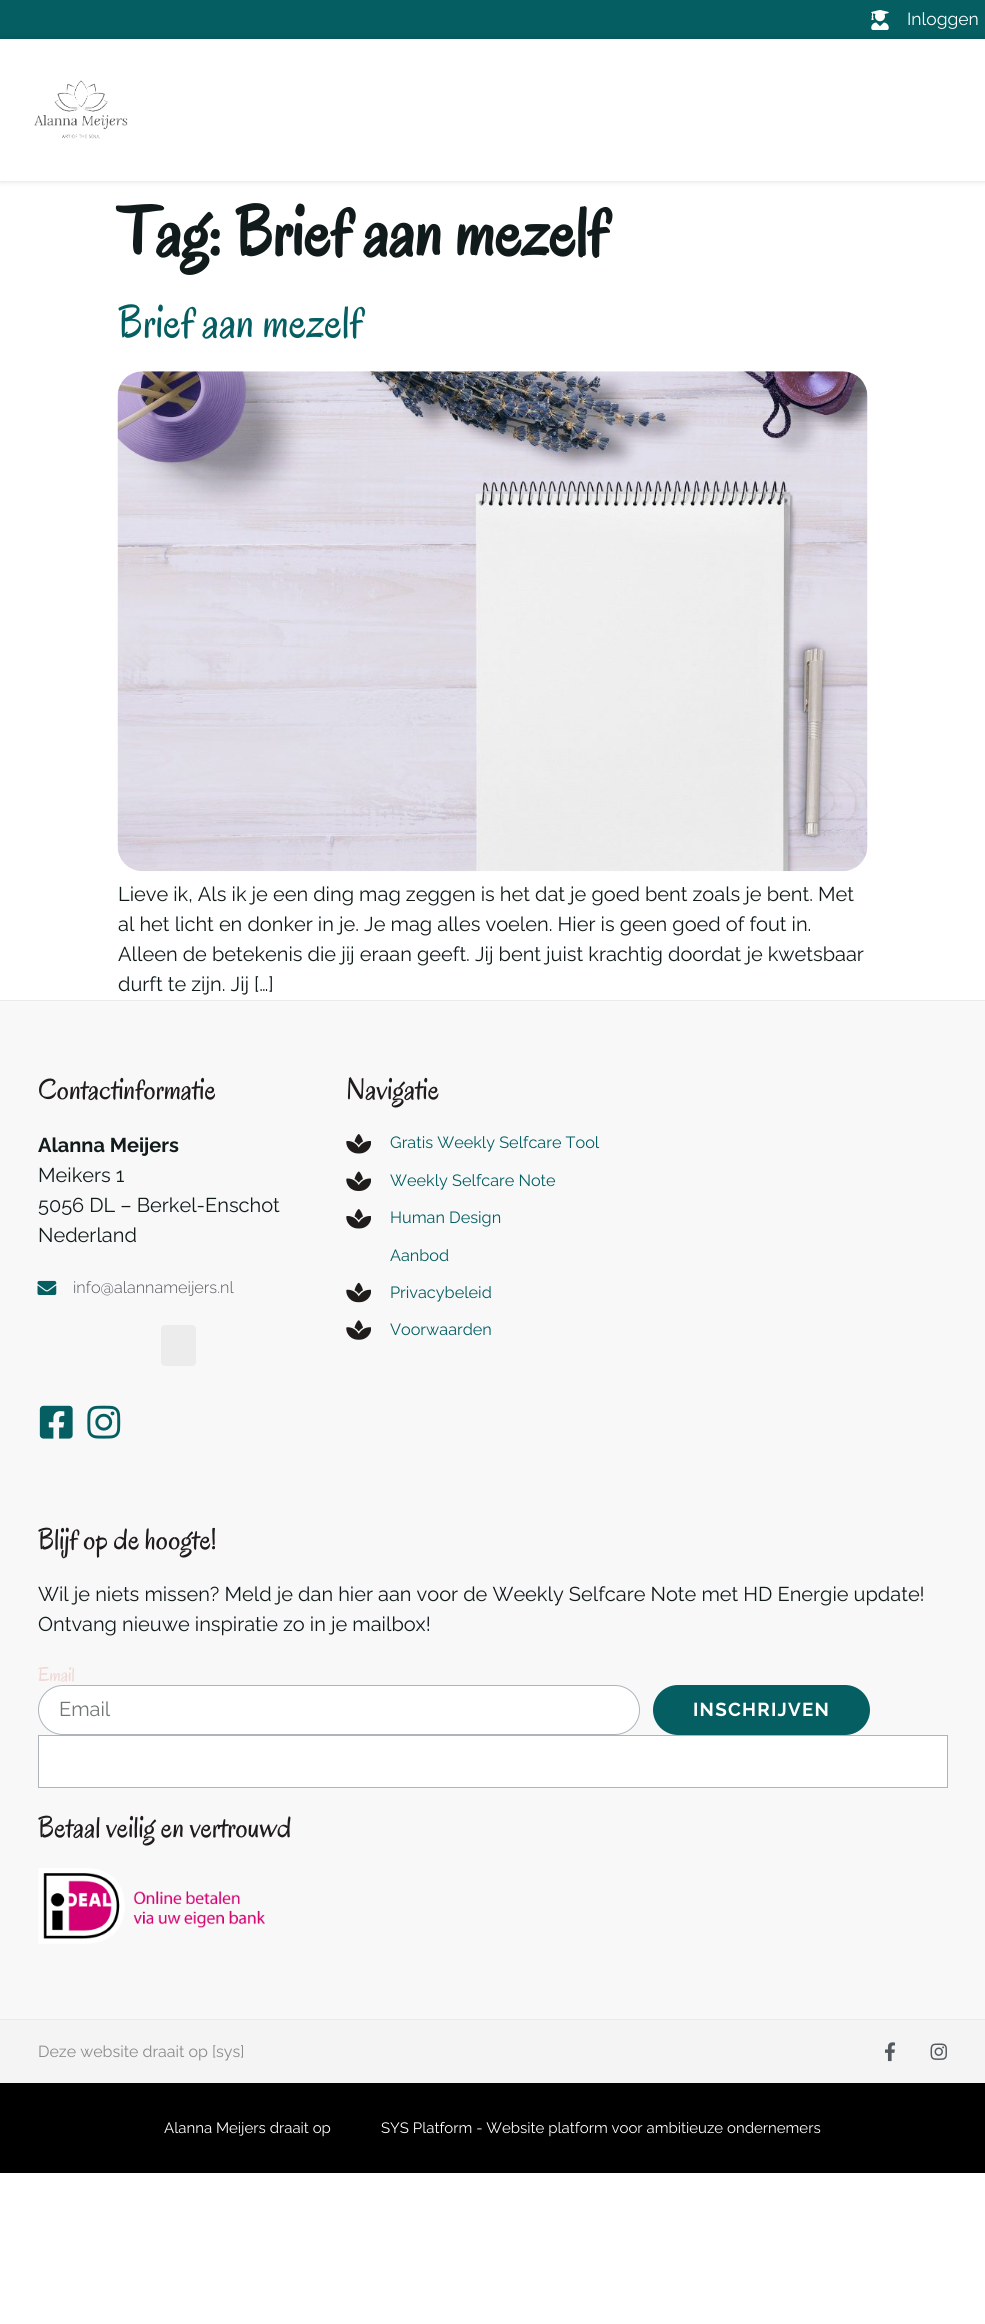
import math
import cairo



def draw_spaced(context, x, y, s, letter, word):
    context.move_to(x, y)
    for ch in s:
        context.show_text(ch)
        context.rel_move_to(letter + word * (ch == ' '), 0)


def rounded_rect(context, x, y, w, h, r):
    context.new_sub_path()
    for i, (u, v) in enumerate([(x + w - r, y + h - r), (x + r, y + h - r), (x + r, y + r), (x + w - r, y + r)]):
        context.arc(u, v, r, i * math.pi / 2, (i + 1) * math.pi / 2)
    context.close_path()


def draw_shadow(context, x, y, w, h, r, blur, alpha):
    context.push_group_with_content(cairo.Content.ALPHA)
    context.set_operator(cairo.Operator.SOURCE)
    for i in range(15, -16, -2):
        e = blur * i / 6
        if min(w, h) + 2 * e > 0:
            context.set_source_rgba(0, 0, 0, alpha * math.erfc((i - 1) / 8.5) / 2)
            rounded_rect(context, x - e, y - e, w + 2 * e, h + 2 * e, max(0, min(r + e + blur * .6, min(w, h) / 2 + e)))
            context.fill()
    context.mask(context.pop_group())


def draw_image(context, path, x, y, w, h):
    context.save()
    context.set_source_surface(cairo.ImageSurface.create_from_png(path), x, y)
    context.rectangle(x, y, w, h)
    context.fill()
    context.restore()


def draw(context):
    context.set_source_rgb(1, 1, 1)
    context.paint()
    context.set_source_rgb(4 / 255, 94 / 255, 98 / 255)
    context.rectangle(0, 0, 985, 39)
    context.fill()
    draw_image(context, "images/1.png", 871, 10, 18, 20)
    context.save()
    context.set_fill_rule(cairo.FillRule.EVEN_ODD)
    context.new_path()
    context.move_to(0, 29)
    context.line_to(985, 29)
    context.line_to(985, 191)
    context.line_to(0, 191)
    context.close_path()
    context.move_to(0, 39)
    context.line_to(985, 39)
    context.line_to(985, 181)
    context.line_to(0, 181)
    context.close_path()
    context.clip()
    context.set_source_rgb(0, 0, 0)
    draw_shadow(context, 0, 39, 985, 142, 0, 3, 0.15)
    context.restore()
    draw_image(context, "images/2.png", 34, 80, 94, 59)
    draw_image(context, "images/3.png", 117, 371, 751, 501)
    context.set_source_rgb(248 / 255, 248 / 255, 248 / 255)
    context.rectangle(0, 1001, 985, 1018)
    context.fill()
    context.set_source_rgb(234 / 255, 234 / 255, 234 / 255)
    context.rectangle(0, 1000, 985, 1)
    context.fill()
    context.rectangle(0, 2019, 985, 1)
    context.fill()
    draw_image(context, "images/4.png", 37, 1280, 20, 15)
    context.set_source_rgb(236 / 255, 236 / 255, 236 / 255)
    rounded_rect(context, 161, 1325, 35, 41, 4)
    context.fill()
    draw_image(context, "images/5.png", 39, 1405, 34, 34)
    draw_image(context, "images/6.png", 87, 1405, 34, 34)
    draw_image(context, "images/7.png", 346, 1134, 25, 20)
    draw_image(context, "images/8.png", 346, 1171, 25, 20)
    draw_image(context, "images/7.png", 346, 1209, 25, 20)
    draw_image(context, "images/9.png", 346, 1282, 25, 21)
    draw_image(context, "images/10.png", 346, 1320, 25, 20)
    context.set_source_rgb(1, 1, 1)
    rounded_rect(context, 38.5, 1685.5, 601, 49, 24.5)
    context.fill_preserve()
    context.set_source_rgb(172 / 255, 181 / 255, 189 / 255)
    context.set_line_width(1)
    context.stroke()
    context.set_source_rgb(4 / 255, 94 / 255, 98 / 255)
    rounded_rect(context, 653, 1685, 217, 50, 25)
    context.fill()
    context.set_source_rgb(1, 1, 1)
    context.rectangle(38.5, 1735.5, 909, 52)
    context.fill_preserve()
    context.set_source_rgb(172 / 255, 181 / 255, 189 / 255)
    context.stroke()
    draw_image(context, "images/11.png", 38, 1868, 227, 76)
    context.set_source_rgb(244 / 255, 244 / 255, 244 / 255)
    context.rectangle(0, 2020, 985, 63)
    context.fill()
    draw_image(context, "images/12.png", 885, 2042, 10, 20)
    draw_image(context, "images/13.png", 930, 2043, 17, 17)
    context.set_source_rgb(0, 0, 0)
    context.rectangle(0, 2083, 985, 90)
    context.fill()
    context.select_font_face("Raleway")
    context.set_font_size(17.5)
    context.set_source_rgb(1, 1, 1)
    context.move_to(907, 25)
    context.show_text("Inloggen")
    context.select_font_face("Oregano", cairo.FontSlant.NORMAL, cairo.FontWeight.BOLD)
    context.set_font_size(70)
    context.set_source_rgb(18 / 255, 27 / 255, 27 / 255)
    context.move_to(118, 255)
    context.show_text("Tag: Brief aan mezelf")
    context.select_font_face("Oregano")
    context.set_font_size(46)
    context.set_source_rgb(4 / 255, 94 / 255, 98 / 255)
    context.move_to(118, 337)
    context.show_text("Brief aan mezelf")
    context.select_font_face("Raleway")
    context.set_font_size(20)
    context.set_source_rgb(18 / 255, 27 / 255, 27 / 255)
    context.move_to(118, 901)
    context.show_text("Lieve ik, Als ik je een ding mag zeggen is het dat je goed bent zoals je bent. Met")
    context.move_to(118, 931)
    context.show_text("al het licht en donker in je. Je mag alles voelen. Hier is geen goed of fout in.")
    context.move_to(118, 961)
    context.show_text("Alleen de betekenis die jij eraan geeft. Jij bent juist krachtig doordat je kwetsbaar")
    context.move_to(118, 991)
    context.show_text("durft te zijn. Jij […]")
    context.select_font_face("Oregano")
    context.set_font_size(30)
    context.set_source_rgb(32 / 255, 28 / 255, 28 / 255)
    context.move_to(38, 1099)
    context.show_text("Contactinformatie")
    context.select_font_face("Raleway", cairo.FontSlant.NORMAL, cairo.FontWeight.BOLD)
    context.set_font_size(20)
    context.set_source_rgb(18 / 255, 27 / 255, 27 / 255)
    context.move_to(38, 1152)
    context.show_text("Alanna Meijers")
    context.select_font_face("Raleway")
    context.move_to(38, 1182)
    context.show_text("Meikers 1")
    context.move_to(38, 1212)
    context.show_text("5056 DL – Berkel-Enschot")
    context.move_to(38, 1242)
    context.show_text("Nederland")
    context.select_font_face("Raleway Light")
    context.set_font_size(16.25)
    context.set_source_rgb(84 / 255, 89 / 255, 95 / 255)
    context.move_to(73, 1293)
    context.show_text("info@alannameijers.nl")
    context.select_font_face("Oregano")
    context.set_font_size(30)
    context.set_source_rgb(32 / 255, 28 / 255, 28 / 255)
    context.move_to(346, 1099)
    context.show_text("Navigatie")
    context.select_font_face("Raleway")
    context.set_font_size(16.25)
    context.set_source_rgb(4 / 255, 94 / 255, 98 / 255)
    context.move_to(390, 1148)
    context.show_text("Gratis Weekly Selfcare Tool")
    context.move_to(390, 1186)
    context.show_text("Weekly Selfcare Note")
    context.move_to(390, 1223)
    context.show_text("Human Design")
    context.move_to(390, 1261)
    context.show_text("Aanbod")
    context.move_to(390, 1298)
    context.show_text("Privacybeleid")
    context.move_to(390, 1335)
    context.show_text("Voorwaarden")
    context.select_font_face("Oregano")
    context.set_font_size(30)
    context.set_source_rgb(32 / 255, 28 / 255, 28 / 255)
    context.move_to(38, 1549)
    context.show_text("Blijf op de hoogte!")
    context.select_font_face("Raleway")
    context.set_font_size(20)
    context.set_source_rgb(18 / 255, 27 / 255, 27 / 255)
    context.move_to(38, 1601)
    context.show_text("Wil je niets missen? Meld je dan hier aan voor de Weekly Selfcare Note met HD Energie update!")
    context.move_to(38, 1631)
    context.show_text("Ontvang nieuwe inspiratie zo in je mailbox!")
    context.select_font_face("Oregano")
    context.set_source_rgb(241 / 255, 216 / 255, 215 / 255)
    context.move_to(38, 1681)
    context.show_text("Email")
    context.select_font_face("Raleway")
    context.set_source_rgb(113 / 255, 118 / 255, 118 / 255)
    context.move_to(59, 1716)
    context.show_text("Email")
    context.select_font_face("Raleway", cairo.FontSlant.NORMAL, cairo.FontWeight.BOLD)
    context.set_font_size(18.75)
    context.set_source_rgb(1, 1, 1)
    draw_spaced(context, 693, 1716, "INSCHRIJVEN", 1.25, 0)
    context.select_font_face("Oregano")
    context.set_font_size(30)
    context.set_source_rgb(32 / 255, 28 / 255, 28 / 255)
    context.move_to(38, 1837)
    context.show_text("Betaal veilig en vertrouwd")
    context.select_font_face("Raleway")
    context.set_font_size(16)
    context.set_source_rgb(139 / 255, 139 / 255, 139 / 255)
    context.move_to(38, 2057)
    context.show_text("Deze website draait op [sys]")
    context.set_font_size(15)
    context.set_source_rgb(1, 1, 1)
    context.move_to(164, 2133)
    context.show_text("Alanna Meijers draait op")
    context.move_to(381, 2133)
    context.show_text("SYS Platform - Website platform voor ambitieuze ondernemers")


surface = cairo.ImageSurface(cairo.Format.RGB24, 985, 2324)
context = cairo.Context(surface)
options = cairo.FontOptions()
options.set_hint_metrics(cairo.HintMetrics.OFF)
options.set_hint_style(cairo.HintStyle.NONE)
context.set_font_options(options)
context.set_miter_limit(4)
draw(context)
surface.write_to_png("out.png")
